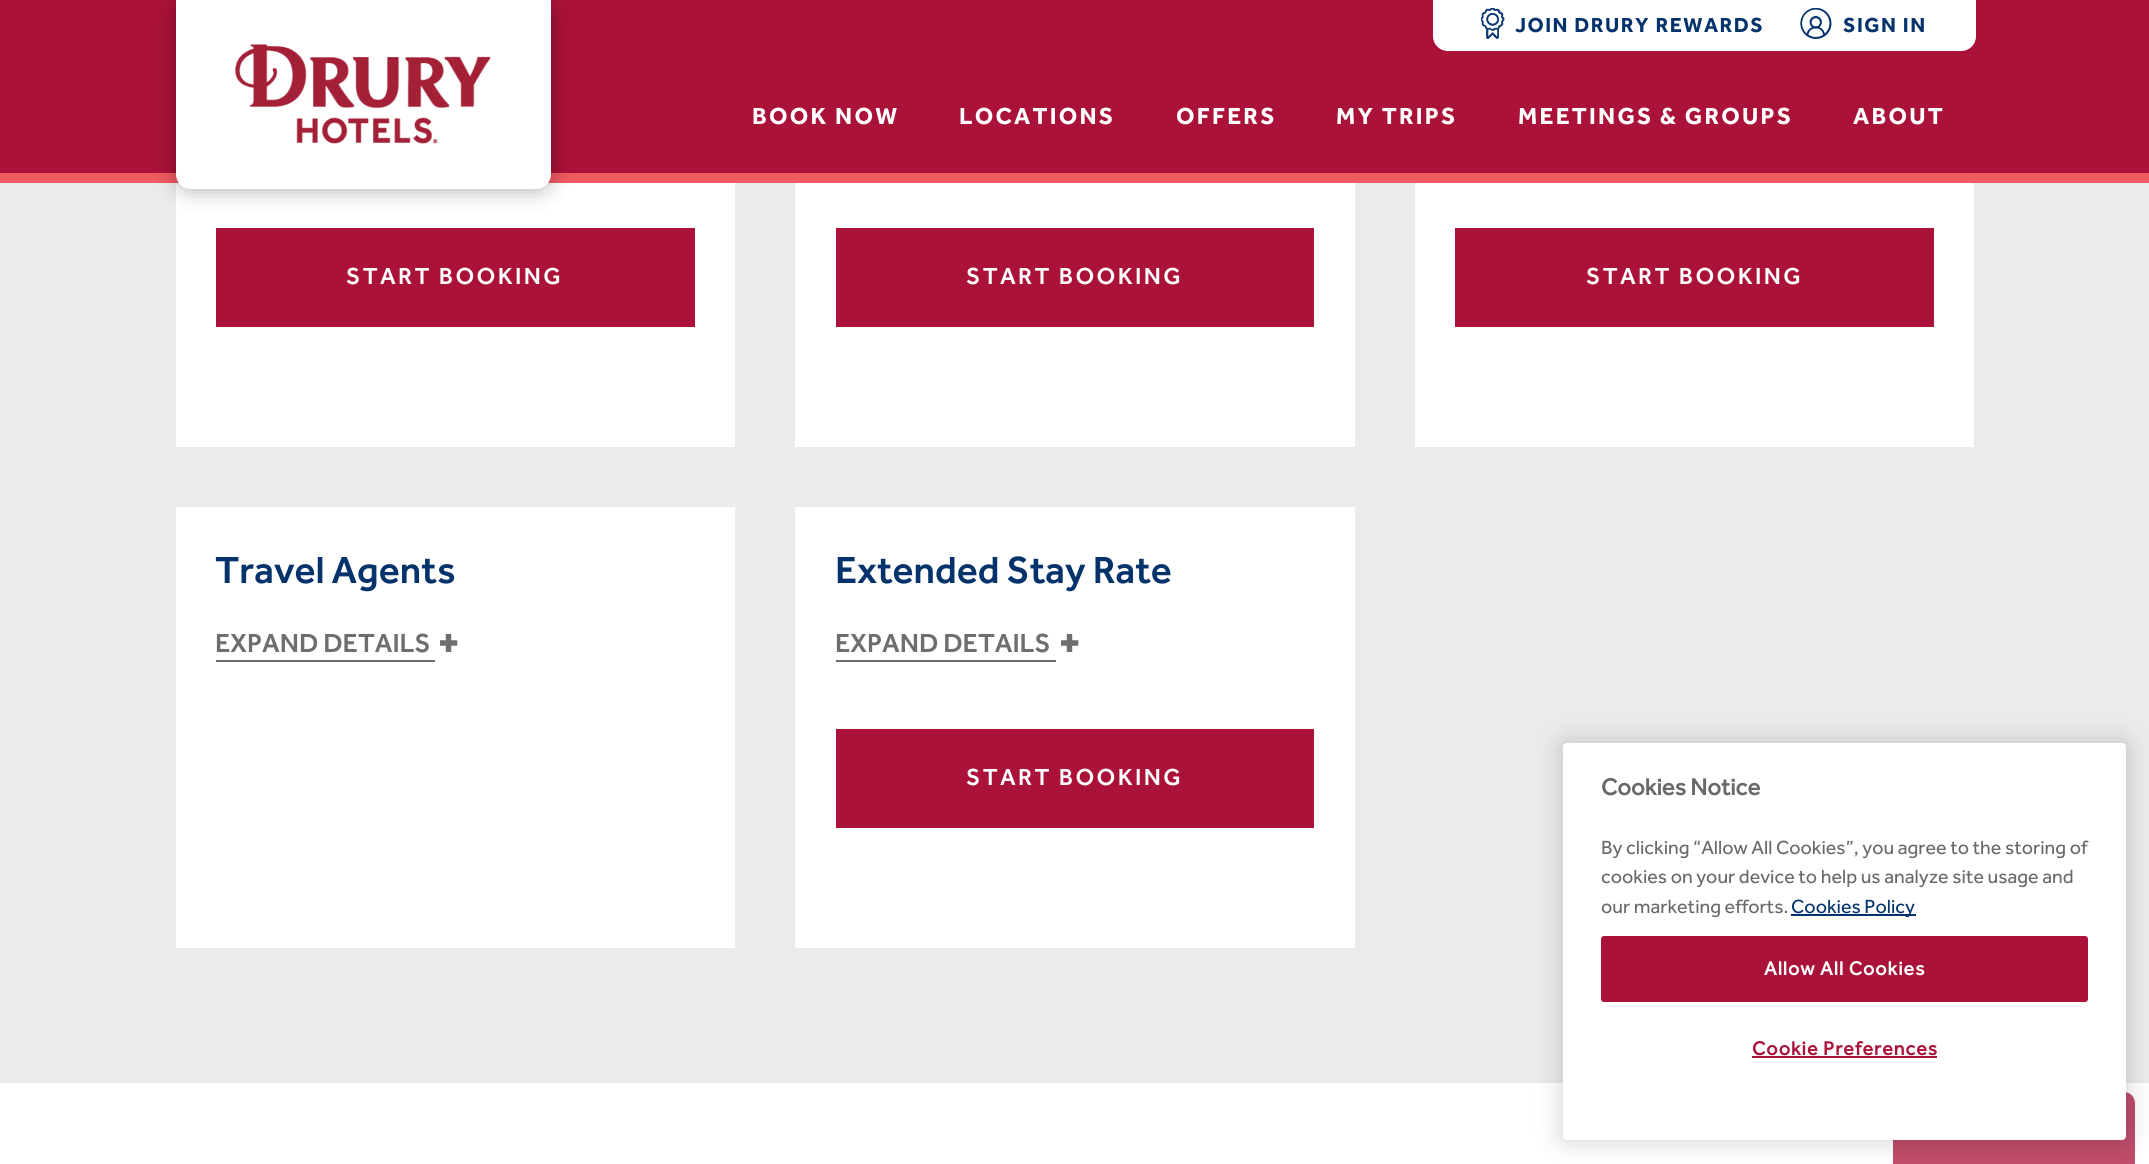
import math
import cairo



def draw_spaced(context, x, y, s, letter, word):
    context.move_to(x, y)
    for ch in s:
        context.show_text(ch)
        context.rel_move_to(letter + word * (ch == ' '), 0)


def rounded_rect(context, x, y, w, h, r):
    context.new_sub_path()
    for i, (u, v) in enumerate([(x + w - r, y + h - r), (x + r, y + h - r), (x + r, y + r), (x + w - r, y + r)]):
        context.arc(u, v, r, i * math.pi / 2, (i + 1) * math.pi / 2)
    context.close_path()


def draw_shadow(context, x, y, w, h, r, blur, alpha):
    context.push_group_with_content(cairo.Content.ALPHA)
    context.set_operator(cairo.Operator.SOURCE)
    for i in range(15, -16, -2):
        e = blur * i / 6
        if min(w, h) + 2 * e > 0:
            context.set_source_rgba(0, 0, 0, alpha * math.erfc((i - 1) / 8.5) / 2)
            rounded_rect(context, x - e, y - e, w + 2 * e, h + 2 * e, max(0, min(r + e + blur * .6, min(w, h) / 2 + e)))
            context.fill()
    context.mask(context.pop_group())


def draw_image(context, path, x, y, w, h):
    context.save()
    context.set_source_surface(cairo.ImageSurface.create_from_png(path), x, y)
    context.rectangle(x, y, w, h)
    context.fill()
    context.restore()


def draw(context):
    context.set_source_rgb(1, 1, 1)
    context.paint()
    context.set_source_rgb(171 / 255, 18 / 255, 57 / 255)
    context.rectangle(0, 0, 2149, 173)
    context.fill()
    context.set_source_rgb(240 / 255, 91 / 255, 97 / 255)
    context.rectangle(0, 173, 2149, 10)
    context.fill()
    context.set_source_rgb(235 / 255, 235 / 255, 236 / 255)
    context.rectangle(0, 183, 2149, 900)
    context.fill()
    context.set_source_rgb(1, 1, 1)
    context.rectangle(176, 183, 559, 264)
    context.fill()
    context.set_source_rgb(0, 0, 0)
    draw_shadow(context, 176, 0, 375, 189, 15, 11, 0.35)
    context.set_source_rgb(1, 1, 1)
    context.new_path()
    context.move_to(176, 0)
    context.line_to(551, 0)
    context.line_to(551, 174)
    context.curve_to(551, 182.5, 544.5, 189, 536, 189)
    context.line_to(191, 189)
    context.curve_to(182.5, 189, 176, 182.5, 176, 174)
    context.close_path()
    context.fill()
    draw_image(context, "images/1.png", 235, 44, 256, 100)
    context.new_path()
    context.move_to(1433, 0)
    context.line_to(1976, 0)
    context.line_to(1976, 36)
    context.curve_to(1976, 44.5, 1969.5, 51, 1961, 51)
    context.line_to(1448, 51)
    context.curve_to(1439.5, 51, 1433, 44.5, 1433, 36)
    context.close_path()
    context.fill()
    draw_image(context, "images/2.png", 1481, 8, 24, 31)
    draw_image(context, "images/3.png", 1800, 8, 32, 31)
    context.set_source_rgb(171 / 255, 18 / 255, 57 / 255)
    context.rectangle(216, 228, 479, 99)
    context.fill()
    context.set_source_rgb(1, 1, 1)
    context.rectangle(795, 183, 560, 264)
    context.fill()
    context.set_source_rgb(171 / 255, 18 / 255, 57 / 255)
    context.rectangle(836, 228, 478, 99)
    context.fill()
    context.set_source_rgb(1, 1, 1)
    context.rectangle(1415, 183, 559, 264)
    context.fill()
    context.set_source_rgb(171 / 255, 18 / 255, 57 / 255)
    context.rectangle(1455, 228, 479, 99)
    context.fill()
    context.set_source_rgb(1, 1, 1)
    context.rectangle(176, 507, 559, 441)
    context.fill()
    context.set_source_rgb(109 / 255, 110 / 255, 112 / 255)
    context.rectangle(216, 660, 219, 2)
    context.fill()
    draw_image(context, "images/4.png", 440, 634, 18, 18)
    context.set_source_rgb(1, 1, 1)
    context.rectangle(795, 507, 560, 441)
    context.fill()
    context.set_source_rgb(109 / 255, 110 / 255, 112 / 255)
    context.rectangle(836, 660, 220, 2)
    context.fill()
    draw_image(context, "images/4.png", 1061, 634, 18, 18)
    context.set_source_rgb(171 / 255, 18 / 255, 57 / 255)
    context.rectangle(836, 729, 478, 99)
    context.fill()
    context.set_source_rgb(192 / 255, 77 / 255, 107 / 255)
    context.new_path()
    context.move_to(1904, 1092)
    context.line_to(2124, 1092)
    context.curve_to(2130, 1092, 2135, 1097, 2135, 1103)
    context.line_to(2135, 1164)
    context.line_to(1893, 1164)
    context.line_to(1893, 1103)
    context.curve_to(1893, 1097, 1898, 1092, 1904, 1092)
    context.close_path()
    context.fill()
    context.set_source_rgb(0, 0, 0)
    draw_shadow(context, 1563, 743, 563, 397, 4, 13.5, 0.2)
    context.set_source_rgb(1, 1, 1)
    rounded_rect(context, 1563, 743, 563, 397, 4)
    context.fill()
    context.set_source_rgb(4 / 255, 51 / 255, 108 / 255)
    context.rectangle(1791, 914, 125, 2)
    context.fill()
    context.set_source_rgb(171 / 255, 18 / 255, 57 / 255)
    rounded_rect(context, 1602, 937, 485, 64, 2)
    context.fill_preserve()
    context.stroke()
    context.rectangle(1752, 1056, 185, 2)
    context.fill()
    context.select_font_face("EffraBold")
    context.set_font_size(21)
    context.set_source_rgb(4 / 255, 51 / 255, 108 / 255)
    draw_spaced(context, 1515, 32, "JOIN DRURY REWARDS", 1.5, 0)
    draw_spaced(context, 1843, 32, "SIGN IN", 1.5, 0)
    context.set_font_size(24)
    context.set_source_rgb(1, 1, 1)
    draw_spaced(context, 752, 124, "BOOK NOW", 2.25, 0)
    draw_spaced(context, 959, 124, "LOCATIONS", 2.25, 0)
    draw_spaced(context, 1176, 124, "OFFERS", 2.25, 0)
    draw_spaced(context, 1336, 124, "MY TRIPS", 2.25, 0)
    draw_spaced(context, 1518, 124, "MEETINGS & GROUPS", 2.25, 0)
    draw_spaced(context, 1853, 124, "ABOUT", 2.25, 0)
    context.select_font_face("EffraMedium")
    draw_spaced(context, 346, 284, "START BOOKING", 2.4, 0)
    draw_spaced(context, 966, 284, "START BOOKING", 2.4, 0)
    draw_spaced(context, 1586, 284, "START BOOKING", 2.4, 0)
    context.set_font_size(39)
    context.set_source_rgb(4 / 255, 51 / 255, 108 / 255)
    context.move_to(215, 583)
    context.show_text("Travel Agents")
    context.set_font_size(27)
    context.set_source_rgb(109 / 255, 110 / 255, 112 / 255)
    context.move_to(215, 652)
    context.show_text("EXPAND DETAILS")
    context.set_font_size(39)
    context.set_source_rgb(4 / 255, 51 / 255, 108 / 255)
    context.move_to(835, 583)
    context.show_text("Extended Stay Rate")
    context.set_font_size(27)
    context.set_source_rgb(109 / 255, 110 / 255, 112 / 255)
    context.move_to(835, 652)
    context.show_text("EXPAND DETAILS")
    context.set_font_size(24)
    context.set_source_rgb(1, 1, 1)
    draw_spaced(context, 966, 785, "START BOOKING", 2.4, 0)
    context.select_font_face("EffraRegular", cairo.FontSlant.NORMAL, cairo.FontWeight.BOLD)
    context.set_source_rgb(105 / 255, 105 / 255, 105 / 255)
    context.move_to(1601, 795)
    context.show_text("Cookies Notice")
    context.select_font_face("EffraRegular")
    context.set_font_size(19.7)
    context.move_to(1601, 854)
    context.show_text("By clicking “Allow All Cookies”, you agree to the storing of")
    context.move_to(1601, 883)
    context.show_text("cookies on your device to help us analyze site usage and")
    context.move_to(1601, 913)
    context.show_text("our marketing efforts.")
    context.set_source_rgb(4 / 255, 51 / 255, 108 / 255)
    context.move_to(1791, 913)
    context.show_text("Cookies Policy")
    context.select_font_face("EffraRegular", cairo.FontSlant.NORMAL, cairo.FontWeight.BOLD)
    context.set_source_rgb(1, 1, 1)
    draw_spaced(context, 1764, 975, "Allow All Cookies", 1, 0)
    context.set_source_rgb(171 / 255, 18 / 255, 57 / 255)
    draw_spaced(context, 1752, 1055, "Cookie Preferences", 1, 0)


surface = cairo.ImageSurface(cairo.Format.RGB24, 2149, 1164)
context = cairo.Context(surface)
options = cairo.FontOptions()
options.set_hint_metrics(cairo.HintMetrics.OFF)
options.set_hint_style(cairo.HintStyle.NONE)
context.set_font_options(options)
context.set_miter_limit(4)
draw(context)
surface.write_to_png("out.png")
